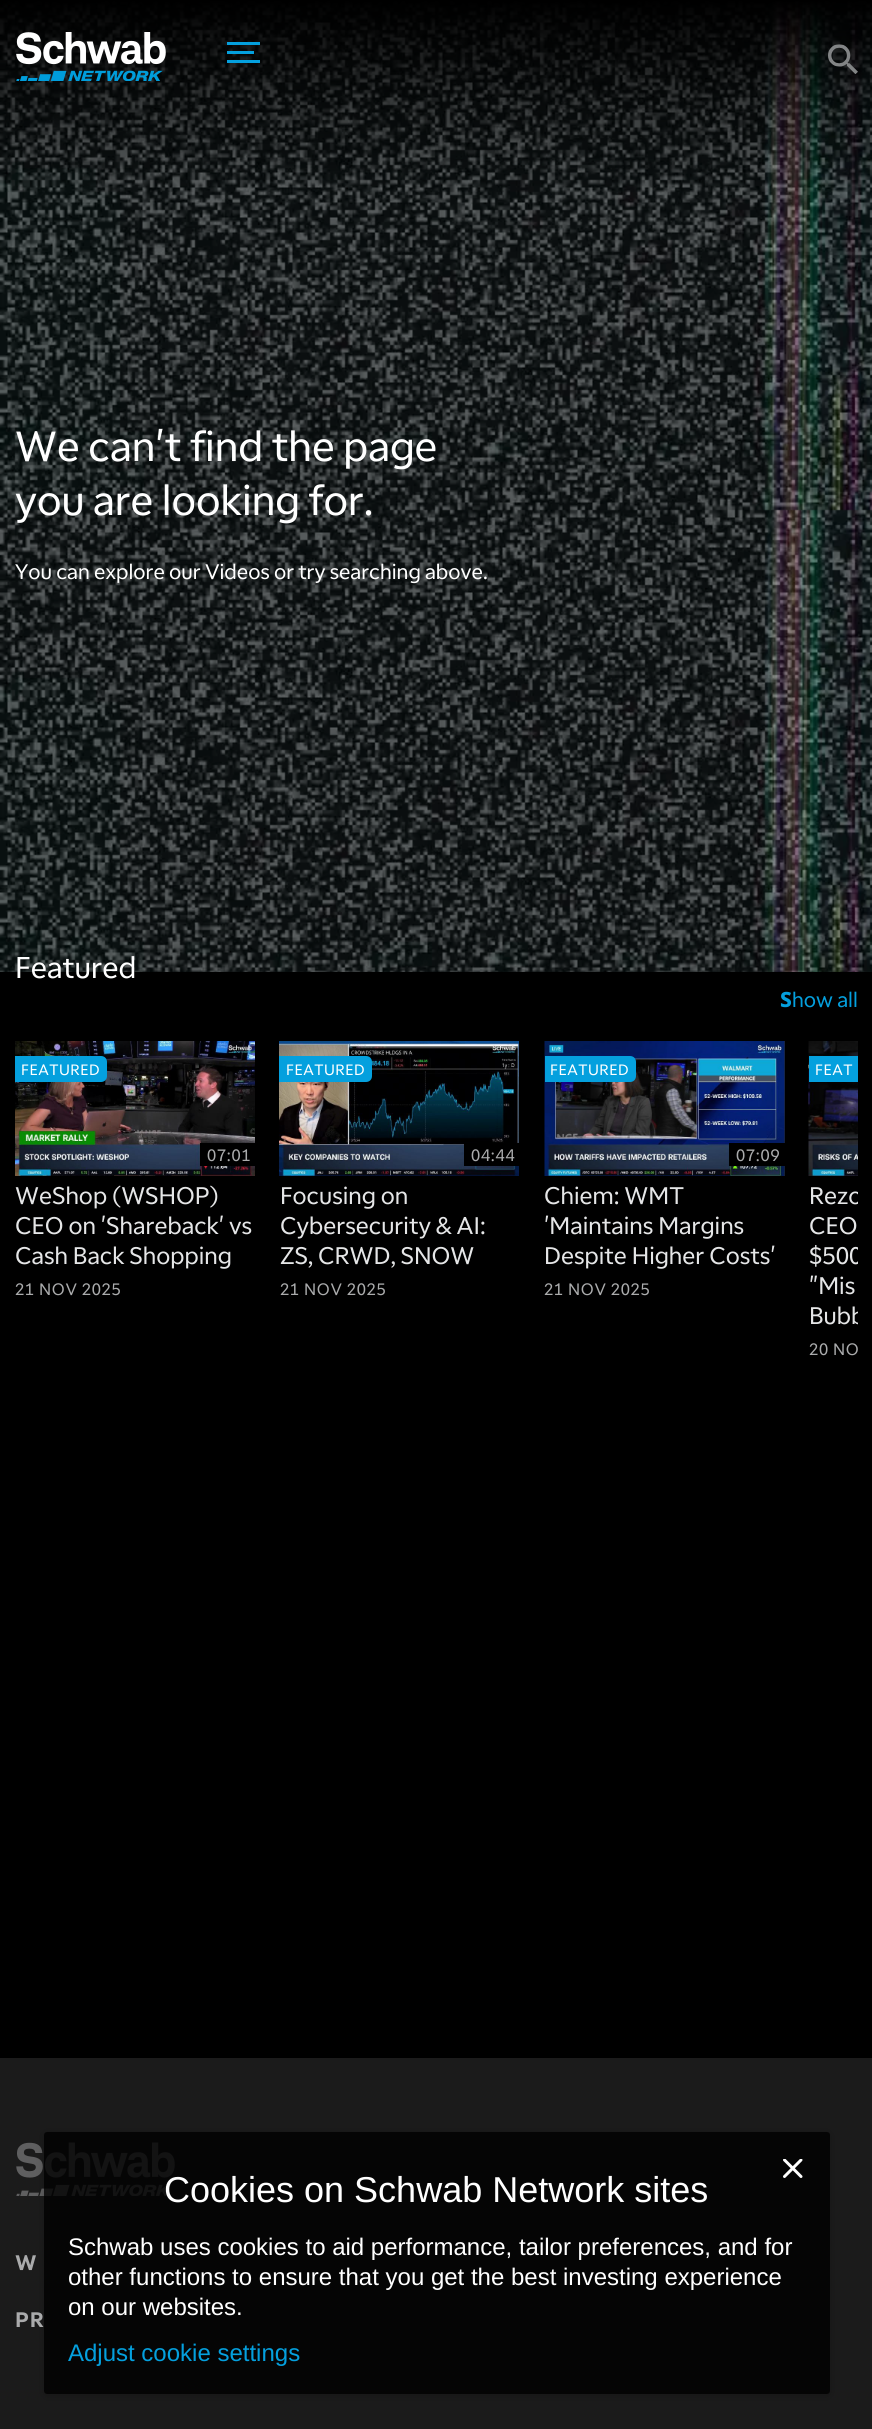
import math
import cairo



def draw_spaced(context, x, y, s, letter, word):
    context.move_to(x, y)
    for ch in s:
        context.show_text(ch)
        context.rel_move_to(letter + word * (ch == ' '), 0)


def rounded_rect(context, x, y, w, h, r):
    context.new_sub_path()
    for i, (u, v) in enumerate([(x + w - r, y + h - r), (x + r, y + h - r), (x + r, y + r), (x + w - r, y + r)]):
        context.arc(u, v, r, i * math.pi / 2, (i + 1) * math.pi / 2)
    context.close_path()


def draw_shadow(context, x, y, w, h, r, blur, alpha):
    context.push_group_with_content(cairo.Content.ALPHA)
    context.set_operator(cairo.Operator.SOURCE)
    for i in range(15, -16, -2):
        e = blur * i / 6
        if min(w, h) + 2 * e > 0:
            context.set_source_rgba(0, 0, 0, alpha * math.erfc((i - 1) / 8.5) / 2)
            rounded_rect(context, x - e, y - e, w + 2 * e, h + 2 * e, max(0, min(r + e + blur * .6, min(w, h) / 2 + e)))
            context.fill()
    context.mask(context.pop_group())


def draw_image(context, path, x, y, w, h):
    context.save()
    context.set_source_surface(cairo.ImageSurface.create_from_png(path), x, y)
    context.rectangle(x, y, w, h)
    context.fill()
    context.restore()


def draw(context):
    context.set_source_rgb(0, 0, 0)
    context.paint()
    draw_image(context, "images/3.png", 0, 0, 872, 972)
    draw_image(context, "images/1.png", 16, 32, 150, 49)
    context.set_source_rgb(4 / 255, 160 / 255, 222 / 255)
    context.rectangle(227, 42, 33, 3)
    context.fill()
    context.rectangle(227, 51, 27, 3)
    context.fill()
    context.rectangle(227, 60, 33, 3)
    context.fill()
    draw_image(context, "images/2.png", 828, 44, 30, 30)
    draw_image(context, "images/4.png", 15, 1041, 240, 135)
    context.new_path()
    context.move_to(15, 1056)
    context.line_to(101, 1056)
    context.curve_to(104.5, 1056, 107, 1058.5, 107, 1062)
    context.line_to(107, 1076)
    context.curve_to(107, 1079.5, 104.5, 1082, 101, 1082)
    context.line_to(15, 1082)
    context.close_path()
    context.fill()
    context.set_source_rgb(0, 0, 0)
    context.rectangle(200, 1143, 55, 23)
    context.fill()
    draw_image(context, "images/5.png", 279, 1041, 240, 135)
    context.set_source_rgb(4 / 255, 160 / 255, 222 / 255)
    context.new_path()
    context.move_to(279, 1056)
    context.line_to(366, 1056)
    context.curve_to(369.5, 1056, 372, 1058.5, 372, 1062)
    context.line_to(372, 1076)
    context.curve_to(372, 1079.5, 369.5, 1082, 366, 1082)
    context.line_to(279, 1082)
    context.close_path()
    context.fill()
    context.set_source_rgb(0, 0, 0)
    context.rectangle(464, 1143, 55, 23)
    context.fill()
    context.set_source_rgb(39 / 255, 39 / 255, 40 / 255)
    context.rectangle(784, 1041, 1, 135)
    context.fill()
    draw_image(context, "images/6.png", 544, 1041, 241, 135)
    context.set_source_rgb(4 / 255, 160 / 255, 222 / 255)
    context.new_path()
    context.move_to(545, 1056)
    context.line_to(630, 1056)
    context.curve_to(633.5, 1056, 636, 1058.5, 636, 1062)
    context.line_to(636, 1076)
    context.curve_to(636, 1079.5, 633.5, 1082, 630, 1082)
    context.line_to(545, 1082)
    context.close_path()
    context.fill()
    context.set_source_rgb(0, 0, 0)
    context.rectangle(729, 1143, 56, 23)
    context.fill()
    draw_image(context, "images/7.png", 808, 1041, 50, 135)
    context.set_source_rgb(4 / 255, 160 / 255, 222 / 255)
    context.rectangle(809, 1056, 49, 26)
    context.fill()
    context.set_source_rgb(27 / 255, 27 / 255, 27 / 255)
    context.rectangle(0, 2058, 872, 371)
    context.fill()
    draw_image(context, "images/8.png", 16, 2142, 159, 54)
    context.save()
    context.set_fill_rule(cairo.FillRule.EVEN_ODD)
    context.new_path()
    context.move_to(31, 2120)
    context.line_to(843, 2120)
    context.line_to(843, 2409)
    context.line_to(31, 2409)
    context.close_path()
    context.move_to(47, 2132)
    context.line_to(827, 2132)
    context.curve_to(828.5, 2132, 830, 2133.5, 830, 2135)
    context.line_to(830, 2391)
    context.curve_to(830, 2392.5, 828.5, 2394, 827, 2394)
    context.line_to(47, 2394)
    context.curve_to(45.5, 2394, 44, 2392.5, 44, 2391)
    context.line_to(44, 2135)
    context.curve_to(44, 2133.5, 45.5, 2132, 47, 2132)
    context.close_path()
    context.clip()
    context.set_source_rgb(0, 0, 0)
    draw_shadow(context, 44, 2133, 786, 263, 3, 4, 0.2)
    context.restore()
    context.set_source_rgba(0, 0, 0, 0.8)
    rounded_rect(context, 44, 2132, 786, 262, 3)
    context.fill()
    draw_image(context, "images/9.png", 783, 2159, 20, 19)
    context.select_font_face("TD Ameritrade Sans")
    context.set_font_size(42)
    context.set_source_rgb(1, 1, 1)
    context.move_to(15, 461)
    context.show_text("We can't find the page")
    context.move_to(15, 515)
    context.show_text("you are looking for.")
    context.set_font_size(21)
    context.move_to(15, 579)
    context.show_text("You can explore our Videos or try searching above.")
    context.set_font_size(30)
    context.move_to(15, 978)
    context.show_text("Featured")
    context.select_font_face("Noto Sans ExtraBold")
    context.set_font_size(21)
    context.set_source_rgb(4 / 255, 160 / 255, 222 / 255)
    context.move_to(780, 1007)
    context.show_text("S")
    context.select_font_face("TD Ameritrade Sans")
    context.move_to(792, 1007)
    context.show_text("how all")
    context.set_font_size(15)
    context.set_source_rgb(1, 1, 1)
    draw_spaced(context, 21, 1075, "FEATURED", 0.5, 0)
    context.set_font_size(16.5)
    context.set_source_rgb(170 / 255, 171 / 255, 172 / 255)
    draw_spaced(context, 207, 1161, "07:01", 0.75, 0)
    context.set_font_size(24)
    context.set_source_rgb(229 / 255, 230 / 255, 231 / 255)
    context.move_to(15, 1204)
    context.show_text("WeShop (WSHOP)")
    context.move_to(15, 1234)
    context.show_text("CEO on 'Shareback' vs")
    context.move_to(15, 1264)
    context.show_text("Cash Back Shopping")
    context.set_font_size(16.5)
    context.set_source_rgb(170 / 255, 171 / 255, 172 / 255)
    draw_spaced(context, 15, 1295, "21 NOV 2025", 0.75, 0)
    context.set_font_size(15)
    context.set_source_rgb(1, 1, 1)
    draw_spaced(context, 286, 1075, "FEATURED", 0.5, 0)
    context.set_font_size(16.5)
    context.set_source_rgb(170 / 255, 171 / 255, 172 / 255)
    draw_spaced(context, 471, 1161, "04:44", 0.75, 0)
    context.set_font_size(24)
    context.set_source_rgb(229 / 255, 230 / 255, 231 / 255)
    context.move_to(280, 1204)
    context.show_text("Focusing on")
    context.move_to(280, 1234)
    context.show_text("Cybersecurity & AI:")
    context.move_to(280, 1264)
    context.show_text("ZS, CRWD, SNOW")
    context.set_font_size(16.5)
    context.set_source_rgb(170 / 255, 171 / 255, 172 / 255)
    draw_spaced(context, 280, 1295, "21 NOV 2025", 0.75, 0)
    context.set_font_size(15)
    context.set_source_rgb(1, 1, 1)
    draw_spaced(context, 550, 1075, "FEATURED", 0.5, 0)
    context.set_font_size(16.5)
    context.set_source_rgb(170 / 255, 171 / 255, 172 / 255)
    draw_spaced(context, 736, 1161, "07:09", 0.75, 0)
    context.set_font_size(24)
    context.set_source_rgb(229 / 255, 230 / 255, 231 / 255)
    context.move_to(544, 1204)
    context.show_text("Chiem: WMT")
    context.move_to(544, 1234)
    context.show_text("'Maintains Margins")
    context.move_to(544, 1264)
    context.show_text("Despite Higher Costs'")
    context.set_font_size(16.5)
    context.set_source_rgb(170 / 255, 171 / 255, 172 / 255)
    draw_spaced(context, 544, 1295, "21 NOV 2025", 0.75, 0)
    context.set_font_size(15)
    context.set_source_rgb(1, 1, 1)
    draw_spaced(context, 815, 1075, "FEAT", 0.5, 0)
    context.save()
    context.rectangle(809, 1181, 49, 150)
    context.clip()
    context.set_font_size(24)
    context.set_source_rgb(229 / 255, 230 / 255, 231 / 255)
    context.move_to(809, 1204)
    context.show_text("Rezo")
    context.restore()
    context.set_font_size(24)
    context.set_source_rgb(229 / 255, 230 / 255, 231 / 255)
    context.move_to(809, 1234)
    context.show_text("CEO")
    context.save()
    context.rectangle(809, 1181, 49, 150)
    context.clip()
    context.move_to(809, 1264)
    context.show_text("$500")
    context.restore()
    context.move_to(809, 1294)
    context.show_text("\"Mis")
    context.save()
    context.rectangle(809, 1181, 49, 150)
    context.clip()
    context.move_to(809, 1324)
    context.show_text("Bubb")
    context.restore()
    context.set_font_size(16.5)
    context.set_source_rgb(170 / 255, 171 / 255, 172 / 255)
    draw_spaced(context, 809, 1355, "20 NO", 0.75, 0)
    context.select_font_face("TD Ameritrade Sans", cairo.FontSlant.NORMAL, cairo.FontWeight.BOLD)
    context.set_font_size(21)
    draw_spaced(context, 15, 2270, "W", 1, 0)
    draw_spaced(context, 15, 2327, "PR", 1, 0)
    context.select_font_face("Liberation Sans")
    context.set_font_size(36)
    context.set_source_rgb(1, 1, 1)
    context.move_to(164, 2202)
    context.show_text("Cookies on Schwab Network sites")
    context.set_font_size(24)
    context.move_to(68, 2255)
    context.show_text("Schwab uses cookies to aid performance, tailor preferences, and for")
    context.move_to(68, 2285)
    context.show_text("other functions to ensure that you get the best investing experience")
    context.move_to(68, 2315)
    context.show_text("on our websites.")
    context.set_source_rgb(4 / 255, 160 / 255, 222 / 255)
    context.move_to(68, 2361)
    context.show_text("Adjust cookie settings")


surface = cairo.ImageSurface(cairo.Format.RGB24, 872, 2429)
context = cairo.Context(surface)
options = cairo.FontOptions()
options.set_hint_metrics(cairo.HintMetrics.OFF)
options.set_hint_style(cairo.HintStyle.NONE)
context.set_font_options(options)
context.set_miter_limit(4)
draw(context)
surface.write_to_png("out.png")
